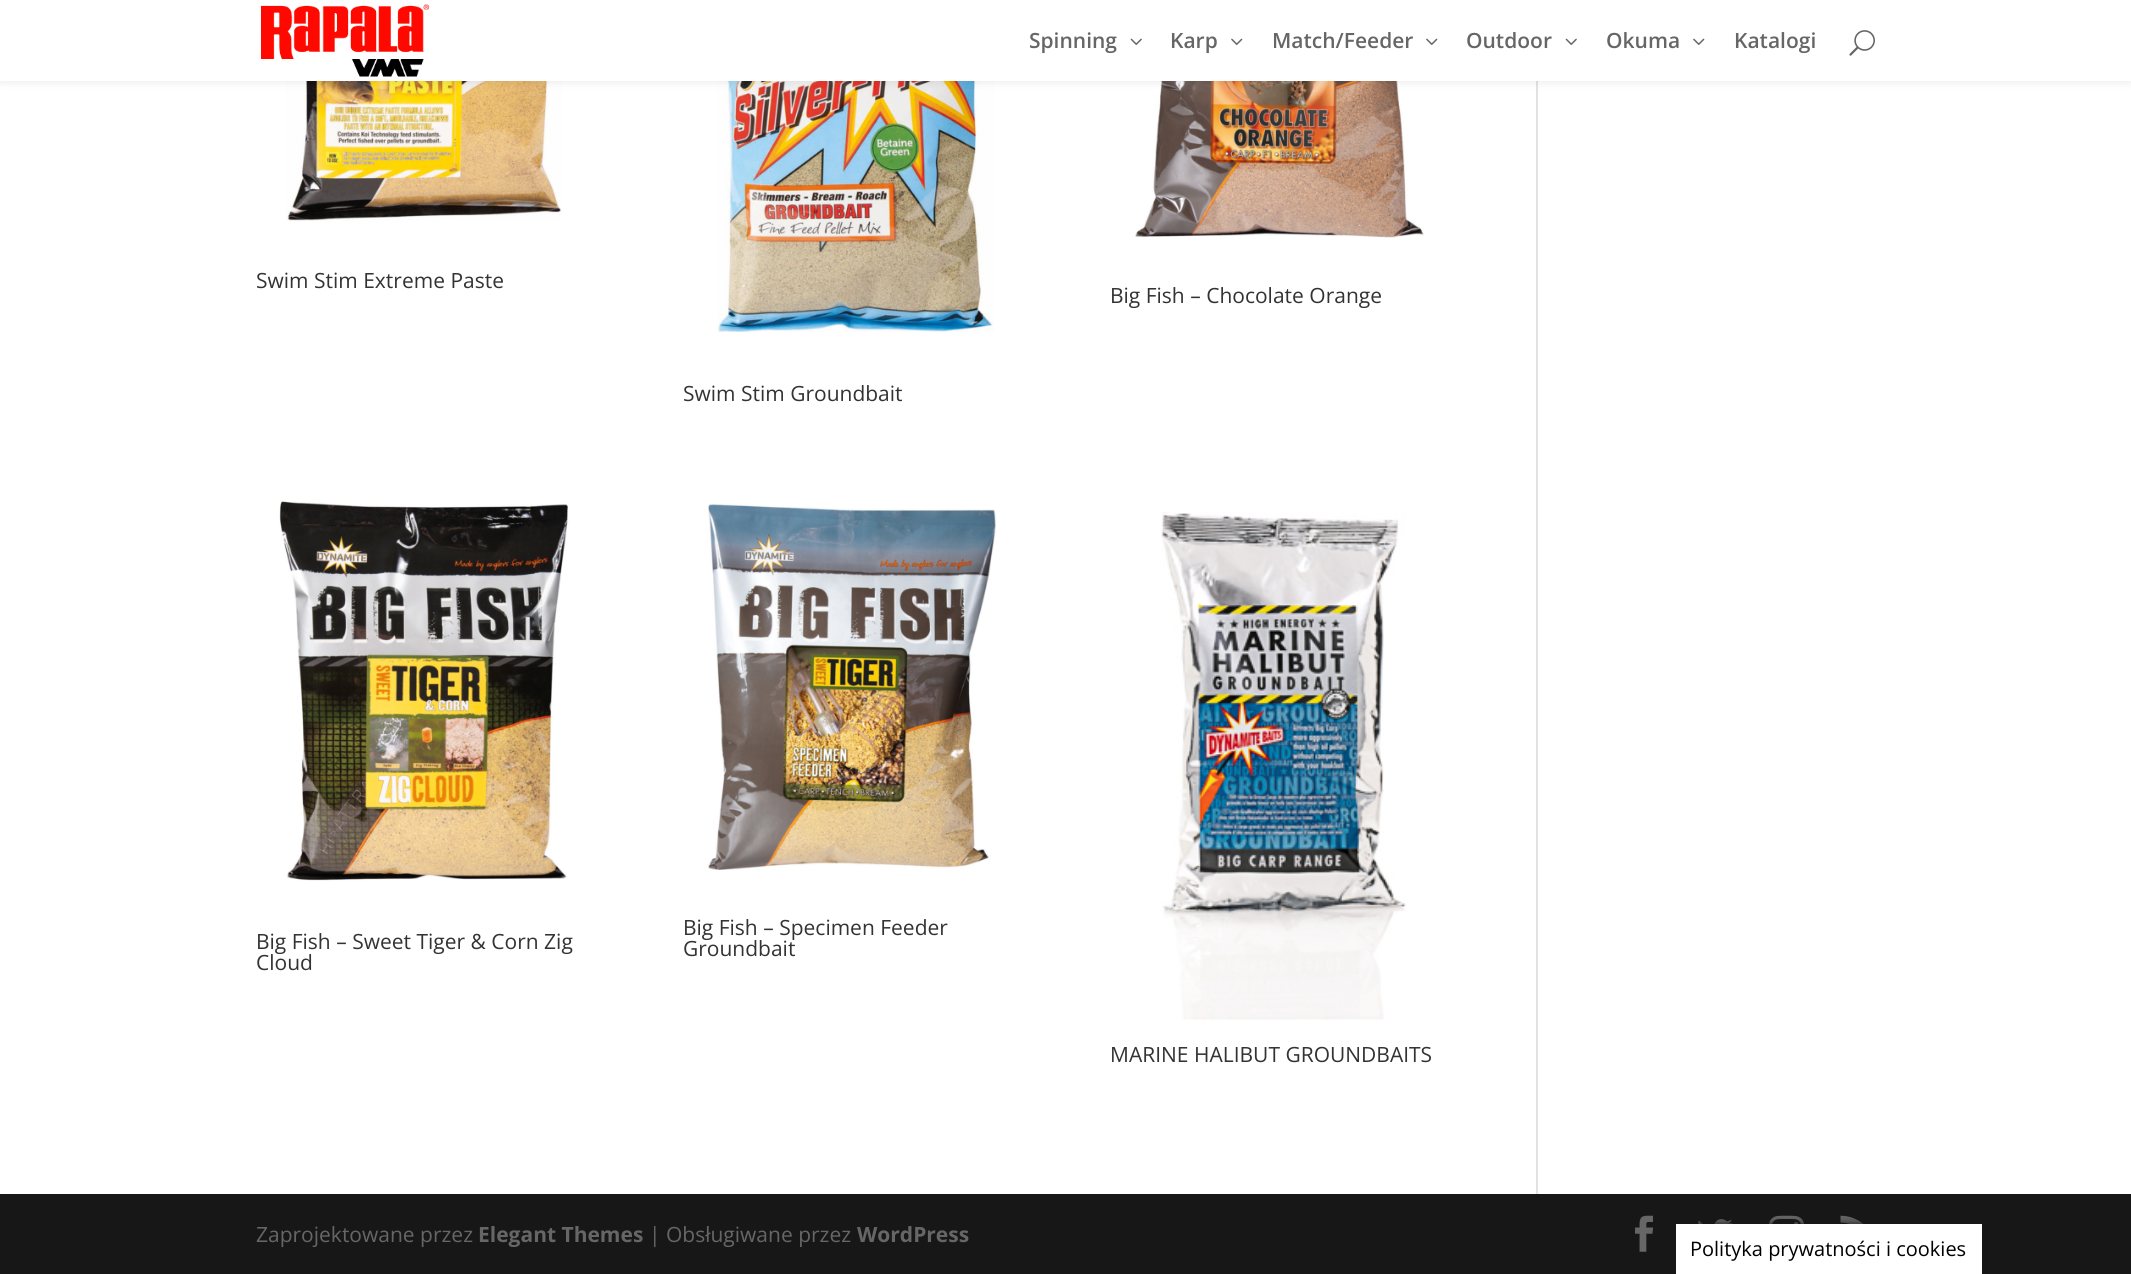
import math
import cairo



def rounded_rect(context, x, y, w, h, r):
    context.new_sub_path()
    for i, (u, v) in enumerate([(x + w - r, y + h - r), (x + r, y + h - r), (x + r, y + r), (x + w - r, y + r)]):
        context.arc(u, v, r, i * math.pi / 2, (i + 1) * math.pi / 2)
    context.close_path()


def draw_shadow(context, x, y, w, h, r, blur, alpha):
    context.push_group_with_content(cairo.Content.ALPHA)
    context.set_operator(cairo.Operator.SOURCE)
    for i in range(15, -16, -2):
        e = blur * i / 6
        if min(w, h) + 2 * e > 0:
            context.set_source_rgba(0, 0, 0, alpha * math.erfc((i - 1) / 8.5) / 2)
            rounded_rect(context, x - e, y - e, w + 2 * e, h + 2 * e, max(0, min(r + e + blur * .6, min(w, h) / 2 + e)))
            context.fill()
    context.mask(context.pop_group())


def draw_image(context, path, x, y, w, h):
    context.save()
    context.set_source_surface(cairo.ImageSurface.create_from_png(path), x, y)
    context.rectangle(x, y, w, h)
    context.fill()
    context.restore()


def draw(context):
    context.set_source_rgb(1, 1, 1)
    context.paint()
    draw_image(context, "images/5.png", 286, 81, 276, 140)
    draw_image(context, "images/6.png", 1135, 81, 289, 157)
    draw_image(context, "images/7.png", 717, 81, 277, 251)
    context.set_source_rgb(226 / 255, 226 / 255, 226 / 255)
    context.rectangle(1536, 81, 2, 1113)
    context.fill()
    context.set_source_rgb(0, 0, 0)
    draw_shadow(context, 0, 0, 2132, 81, 0, 5, 0.1)
    context.set_source_rgb(1, 1, 1)
    context.rectangle(0, 0, 2131, 81)
    context.fill()
    draw_image(context, "images/1.png", 261, 4, 168, 73)
    draw_image(context, "images/2.png", 1130, 38, 12, 7)
    draw_image(context, "images/3.png", 1231, 38, 12, 7)
    draw_image(context, "images/3.png", 1426, 38, 12, 7)
    draw_image(context, "images/2.png", 1565, 38, 12, 7)
    draw_image(context, "images/3.png", 1693, 38, 12, 7)
    draw_image(context, "images/4.png", 1849, 30, 26, 26)
    draw_image(context, "images/8.png", 279, 501, 290, 380)
    draw_image(context, "images/9.png", 708, 504, 288, 366)
    draw_image(context, "images/10.png", 1161, 512, 245, 508)
    context.set_source_rgb(23 / 255, 23 / 255, 23 / 255)
    context.rectangle(0, 1194, 2131, 80)
    context.fill()
    draw_image(context, "images/11.png", 1635, 1215, 18, 37)
    draw_image(context, "images/12.png", 1698, 1219, 35, 5)
    draw_image(context, "images/13.png", 1768, 1215, 37, 9)
    draw_image(context, "images/14.png", 1840, 1215, 24, 9)
    context.set_source_rgb(22 / 255, 22 / 255, 22 / 255)
    draw_shadow(context, 1676, 1224, 312, 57, 0, 4, 1)
    context.set_source_rgb(1, 1, 1)
    context.rectangle(1676, 1224, 306, 50)
    context.fill()
    context.select_font_face("Open Sans SemiBold")
    context.set_font_size(21)
    context.set_source_rgb(102 / 255, 102 / 255, 102 / 255)
    context.move_to(1029, 48)
    context.show_text("Spinning")
    context.move_to(1170, 48)
    context.show_text("Karp")
    context.move_to(1272, 48)
    context.show_text("Match/Feeder")
    context.move_to(1466, 48)
    context.show_text("Outdoor")
    context.move_to(1606, 48)
    context.show_text("Okuma")
    context.move_to(1734, 48)
    context.show_text("Katalogi")
    context.select_font_face("Open Sans")
    context.set_source_rgb(51 / 255, 51 / 255, 51 / 255)
    context.move_to(256, 288)
    context.show_text("Swim Stim Extreme Paste")
    context.move_to(1110, 303)
    context.show_text("Big Fish – Chocolate Orange")
    context.move_to(683, 401)
    context.show_text("Swim Stim Groundbait")
    context.move_to(256, 949)
    context.show_text("Big Fish – Sweet Tiger & Corn Zig")
    context.move_to(256, 970)
    context.show_text("Cloud")
    context.move_to(683, 935)
    context.show_text("Big Fish – Specimen Feeder")
    context.move_to(683, 956)
    context.show_text("Groundbait")
    context.move_to(1110, 1062)
    context.show_text("MARINE HALIBUT GROUNDBAITS")
    context.set_source_rgb(102 / 255, 102 / 255, 102 / 255)
    context.move_to(256, 1242)
    context.show_text("Zaprojektowane przez")
    context.select_font_face("Open Sans", cairo.FontSlant.NORMAL, cairo.FontWeight.BOLD)
    context.move_to(478, 1242)
    context.show_text("Elegant Themes")
    context.select_font_face("Open Sans")
    context.move_to(649, 1242)
    context.show_text("| Obsługiwane przez")
    context.select_font_face("Open Sans", cairo.FontSlant.NORMAL, cairo.FontWeight.BOLD)
    context.move_to(857, 1242)
    context.show_text("WordPress")
    context.select_font_face("Open Sans")
    context.set_font_size(20)
    context.set_source_rgb(0, 0, 0)
    context.move_to(1690, 1256)
    context.show_text("Polityka prywatności i cookies")


surface = cairo.ImageSurface(cairo.Format.RGB24, 2131, 1274)
context = cairo.Context(surface)
options = cairo.FontOptions()
options.set_hint_metrics(cairo.HintMetrics.OFF)
options.set_hint_style(cairo.HintStyle.NONE)
context.set_font_options(options)
context.set_miter_limit(4)
draw(context)
surface.write_to_png("out.png")
